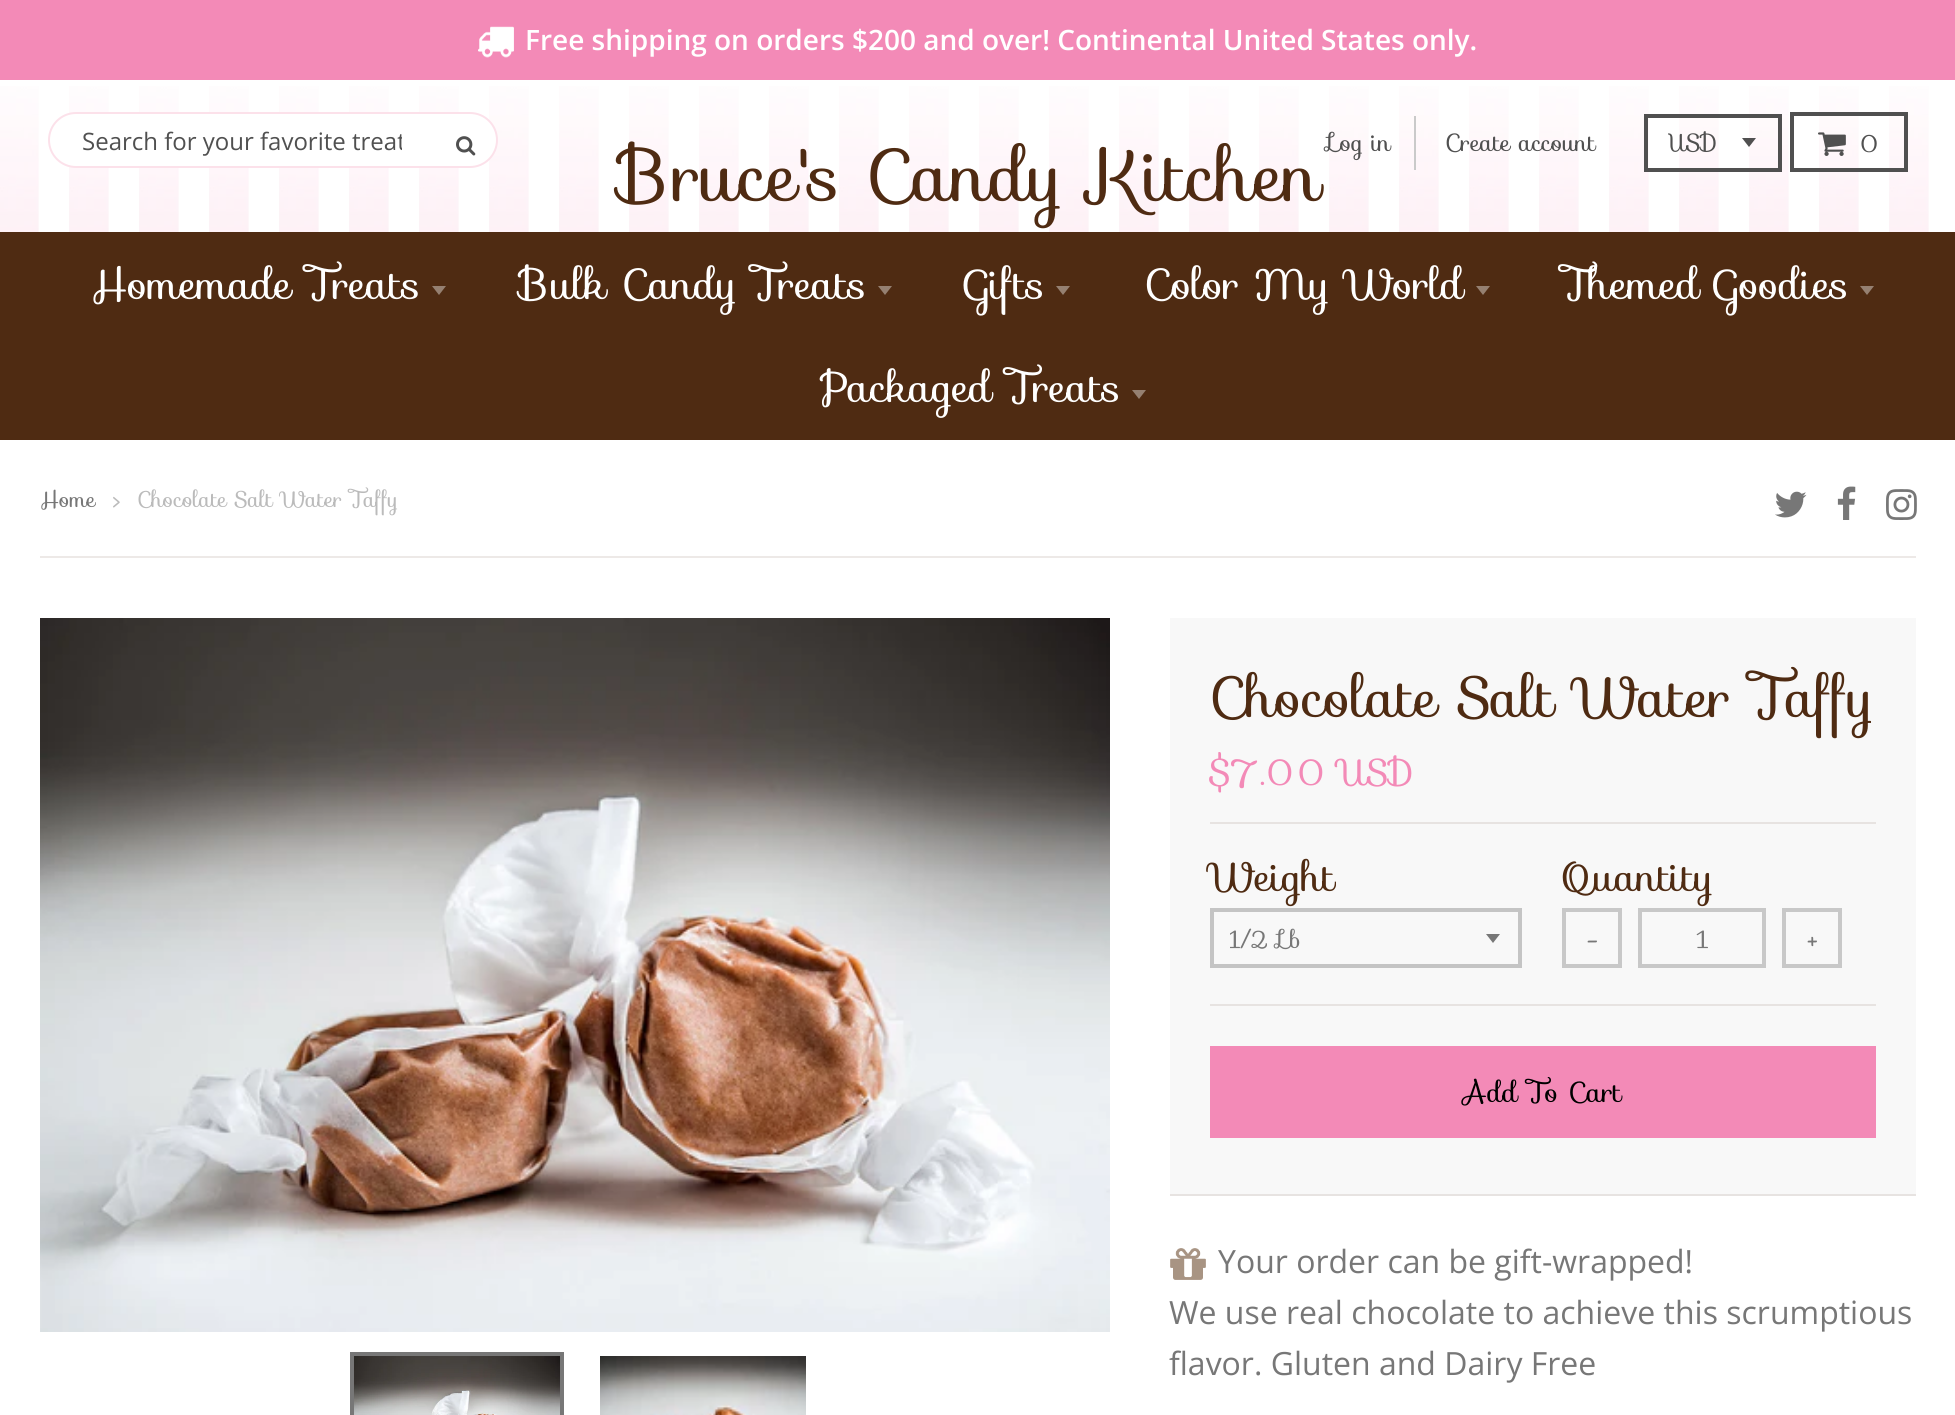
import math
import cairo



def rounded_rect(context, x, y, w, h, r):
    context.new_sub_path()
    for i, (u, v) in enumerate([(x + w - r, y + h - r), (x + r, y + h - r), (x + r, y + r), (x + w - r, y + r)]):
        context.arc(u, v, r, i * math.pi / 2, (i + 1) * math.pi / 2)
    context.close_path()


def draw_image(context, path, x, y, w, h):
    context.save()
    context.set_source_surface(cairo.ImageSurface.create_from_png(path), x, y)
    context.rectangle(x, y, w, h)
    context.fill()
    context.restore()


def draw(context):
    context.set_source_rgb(1, 1, 1)
    context.paint()
    context.set_source_rgb(243 / 255, 138 / 255, 183 / 255)
    context.rectangle(0, 0, 1955, 80)
    context.fill()
    draw_image(context, "images/1.png", 478, 26, 36, 32)
    draw_image(context, "images/4.png", 0, 86, 1929, 146)
    context.set_source_rgb(1, 1, 1)
    rounded_rect(context, 49, 113, 448, 54, 27)
    context.fill_preserve()
    context.set_source_rgb(252 / 255, 225 / 255, 234 / 255)
    context.stroke()
    draw_image(context, "images/2.png", 456, 136, 20, 20)
    context.set_source_rgb(202 / 255, 202 / 255, 202 / 255)
    context.rectangle(1414, 116, 2, 54)
    context.fill()
    context.set_source_rgb(80 / 255, 80 / 255, 80 / 255)
    context.new_path()
    context.move_to(1742, 138)
    context.line_to(1749, 147)
    context.line_to(1756, 138)
    context.close_path()
    context.fill()
    context.rectangle(1646, 116, 134, 54)
    context.set_line_width(4)
    context.stroke()
    context.rectangle(1792, 114, 114, 56)
    context.stroke()
    draw_image(context, "images/3.png", 1818, 132, 28, 24)
    context.set_source_rgb(79 / 255, 43 / 255, 18 / 255)
    context.rectangle(0, 232, 1955, 208)
    context.fill()
    context.set_source_rgb(149 / 255, 128 / 255, 113 / 255)
    context.new_path()
    context.move_to(432, 286)
    context.line_to(439, 295)
    context.line_to(446, 286)
    context.close_path()
    context.fill()
    context.new_path()
    context.move_to(878, 286)
    context.line_to(885, 295)
    context.line_to(892, 286)
    context.close_path()
    context.fill()
    context.new_path()
    context.move_to(1056, 286)
    context.line_to(1063, 295)
    context.line_to(1070, 286)
    context.close_path()
    context.fill()
    context.new_path()
    context.move_to(1476, 286)
    context.line_to(1483, 295)
    context.line_to(1490, 286)
    context.close_path()
    context.fill()
    context.new_path()
    context.move_to(1860, 286)
    context.line_to(1867, 295)
    context.line_to(1874, 286)
    context.close_path()
    context.fill()
    context.new_path()
    context.move_to(1132, 390)
    context.line_to(1139, 399)
    context.line_to(1146, 390)
    context.close_path()
    context.fill()
    draw_image(context, "images/5.png", 1775, 491, 32, 27)
    draw_image(context, "images/6.png", 1837, 486, 19, 34)
    draw_image(context, "images/7.png", 1886, 489, 31, 31)
    context.set_source_rgb(237 / 255, 233 / 255, 231 / 255)
    context.rectangle(40, 556, 1876, 2)
    context.fill()
    draw_image(context, "images/8.png", 40, 618, 1070, 714)
    context.rectangle(352, 1354, 210, 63)
    context.set_source_rgb(119 / 255, 119 / 255, 119 / 255)
    context.stroke()
    draw_image(context, "images/9.png", 354, 1356, 206, 59)
    draw_image(context, "images/10.png", 600, 1356, 206, 59)
    context.set_source_rgb(248 / 255, 248 / 255, 248 / 255)
    context.rectangle(1170, 618, 746, 576)
    context.fill()
    context.set_source_rgb(231 / 255, 227 / 255, 225 / 255)
    context.rectangle(1170, 1194, 746, 2)
    context.fill()
    context.rectangle(1210, 822, 666, 2)
    context.fill()
    context.rectangle(1210, 1004, 666, 2)
    context.fill()
    context.set_source_rgb(119 / 255, 119 / 255, 119 / 255)
    context.new_path()
    context.move_to(1486, 934)
    context.line_to(1493, 943)
    context.line_to(1500, 934)
    context.close_path()
    context.fill()
    context.rectangle(1212, 910, 308, 56)
    context.set_source_rgb(196 / 255, 196 / 255, 196 / 255)
    context.stroke()
    context.rectangle(1564, 910, 56, 56)
    context.set_source_rgb(200 / 255, 200 / 255, 200 / 255)
    context.stroke()
    context.rectangle(1640, 910, 124, 56)
    context.stroke()
    context.rectangle(1784, 910, 56, 56)
    context.stroke()
    context.set_source_rgb(243 / 255, 138 / 255, 183 / 255)
    context.rectangle(1210, 1046, 666, 92)
    context.fill()
    draw_image(context, "images/11.png", 1170, 1248, 36, 32)
    context.select_font_face("Open Sans SemiBold")
    context.set_font_size(28)
    context.set_source_rgb(1, 1, 1)
    context.move_to(525, 50)
    context.show_text("Free shipping on orders $200 and over! Continental United States only.")
    context.save()
    context.rectangle(82, 124, 320, 34)
    context.clip()
    context.select_font_face("Open Sans")
    context.set_font_size(24)
    context.set_source_rgb(80 / 255, 80 / 255, 80 / 255)
    context.move_to(82, 150)
    context.show_text("Search for your favorite treat")
    context.restore()
    context.select_font_face("Sofia")
    context.set_font_size(24)
    context.set_source_rgb(80 / 255, 80 / 255, 80 / 255)
    context.move_to(1445, 151)
    context.show_text("Create account")
    context.save()
    context.rectangle(1668, 124, 54, 38)
    context.clip()
    context.move_to(1668, 151)
    context.show_text("USD")
    context.restore()
    context.move_to(1859, 152)
    context.show_text("0")
    context.set_font_size(72)
    context.set_source_rgb(79 / 255, 43 / 255, 18 / 255)
    context.move_to(618, 201)
    context.show_text("Bruce's Candy Kitchen")
    context.set_font_size(24)
    context.set_source_rgb(80 / 255, 80 / 255, 80 / 255)
    context.move_to(1328, 151)
    context.show_text("Log in")
    context.set_font_size(42)
    context.set_source_rgb(1, 1, 1)
    context.move_to(91, 299)
    context.show_text("Homemade Treats")
    context.move_to(519, 299)
    context.show_text("Bulk Candy Treats")
    context.move_to(965, 299)
    context.show_text("Gifts")
    context.move_to(1144, 299)
    context.show_text("Color My World")
    context.move_to(1562, 299)
    context.show_text("Themed Goodies")
    context.move_to(820, 402)
    context.show_text("Packaged Treats")
    context.set_font_size(22)
    context.set_source_rgb(119 / 255, 119 / 255, 119 / 255)
    context.move_to(40, 507)
    context.show_text("Home")
    context.set_source_rgb(187 / 255, 187 / 255, 187 / 255)
    context.move_to(111, 507)
    context.show_text("›")
    context.move_to(137, 507)
    context.show_text("Chocolate Salt Water Taffy")
    context.set_font_size(56)
    context.set_source_rgb(79 / 255, 43 / 255, 18 / 255)
    context.move_to(1209, 717)
    context.show_text("Chocolate Salt Water Taffy")
    context.set_font_size(36)
    context.set_source_rgb(243 / 255, 138 / 255, 183 / 255)
    context.move_to(1209, 785)
    context.show_text("$7.00 USD")
    context.set_font_size(40)
    context.set_source_rgb(79 / 255, 43 / 255, 18 / 255)
    context.move_to(1209, 891)
    context.show_text("Weight")
    context.save()
    context.rectangle(1230, 920, 236, 38)
    context.clip()
    context.set_font_size(24)
    context.set_source_rgb(119 / 255, 119 / 255, 119 / 255)
    context.move_to(1229, 948)
    context.show_text("1/2 Lb")
    context.restore()
    context.move_to(1563, 891)
    context.show_text("Quantity")
    context.set_font_size(24)
    context.set_source_rgb(119 / 255, 119 / 255, 119 / 255)
    context.move_to(1587, 948)
    context.show_text("-")
    context.move_to(1697, 948)
    context.show_text("1")
    context.move_to(1807, 948)
    context.show_text("+")
    context.set_font_size(28)
    context.set_source_rgb(0, 0, 0)
    context.move_to(1463, 1102)
    context.show_text("Add To Cart")
    context.select_font_face("Open Sans")
    context.set_font_size(32)
    context.set_source_rgb(119 / 255, 119 / 255, 119 / 255)
    context.move_to(1218, 1273)
    context.show_text("Your order can be gift-wrapped!")
    context.move_to(1169, 1324)
    context.show_text("We use real chocolate to achieve this scrumptious")
    context.move_to(1169, 1375)
    context.show_text("flavor. Gluten and Dairy Free")


surface = cairo.ImageSurface(cairo.Format.RGB24, 1955, 1415)
context = cairo.Context(surface)
options = cairo.FontOptions()
options.set_hint_metrics(cairo.HintMetrics.OFF)
options.set_hint_style(cairo.HintStyle.NONE)
context.set_font_options(options)
context.set_miter_limit(4)
draw(context)
surface.write_to_png("out.png")
